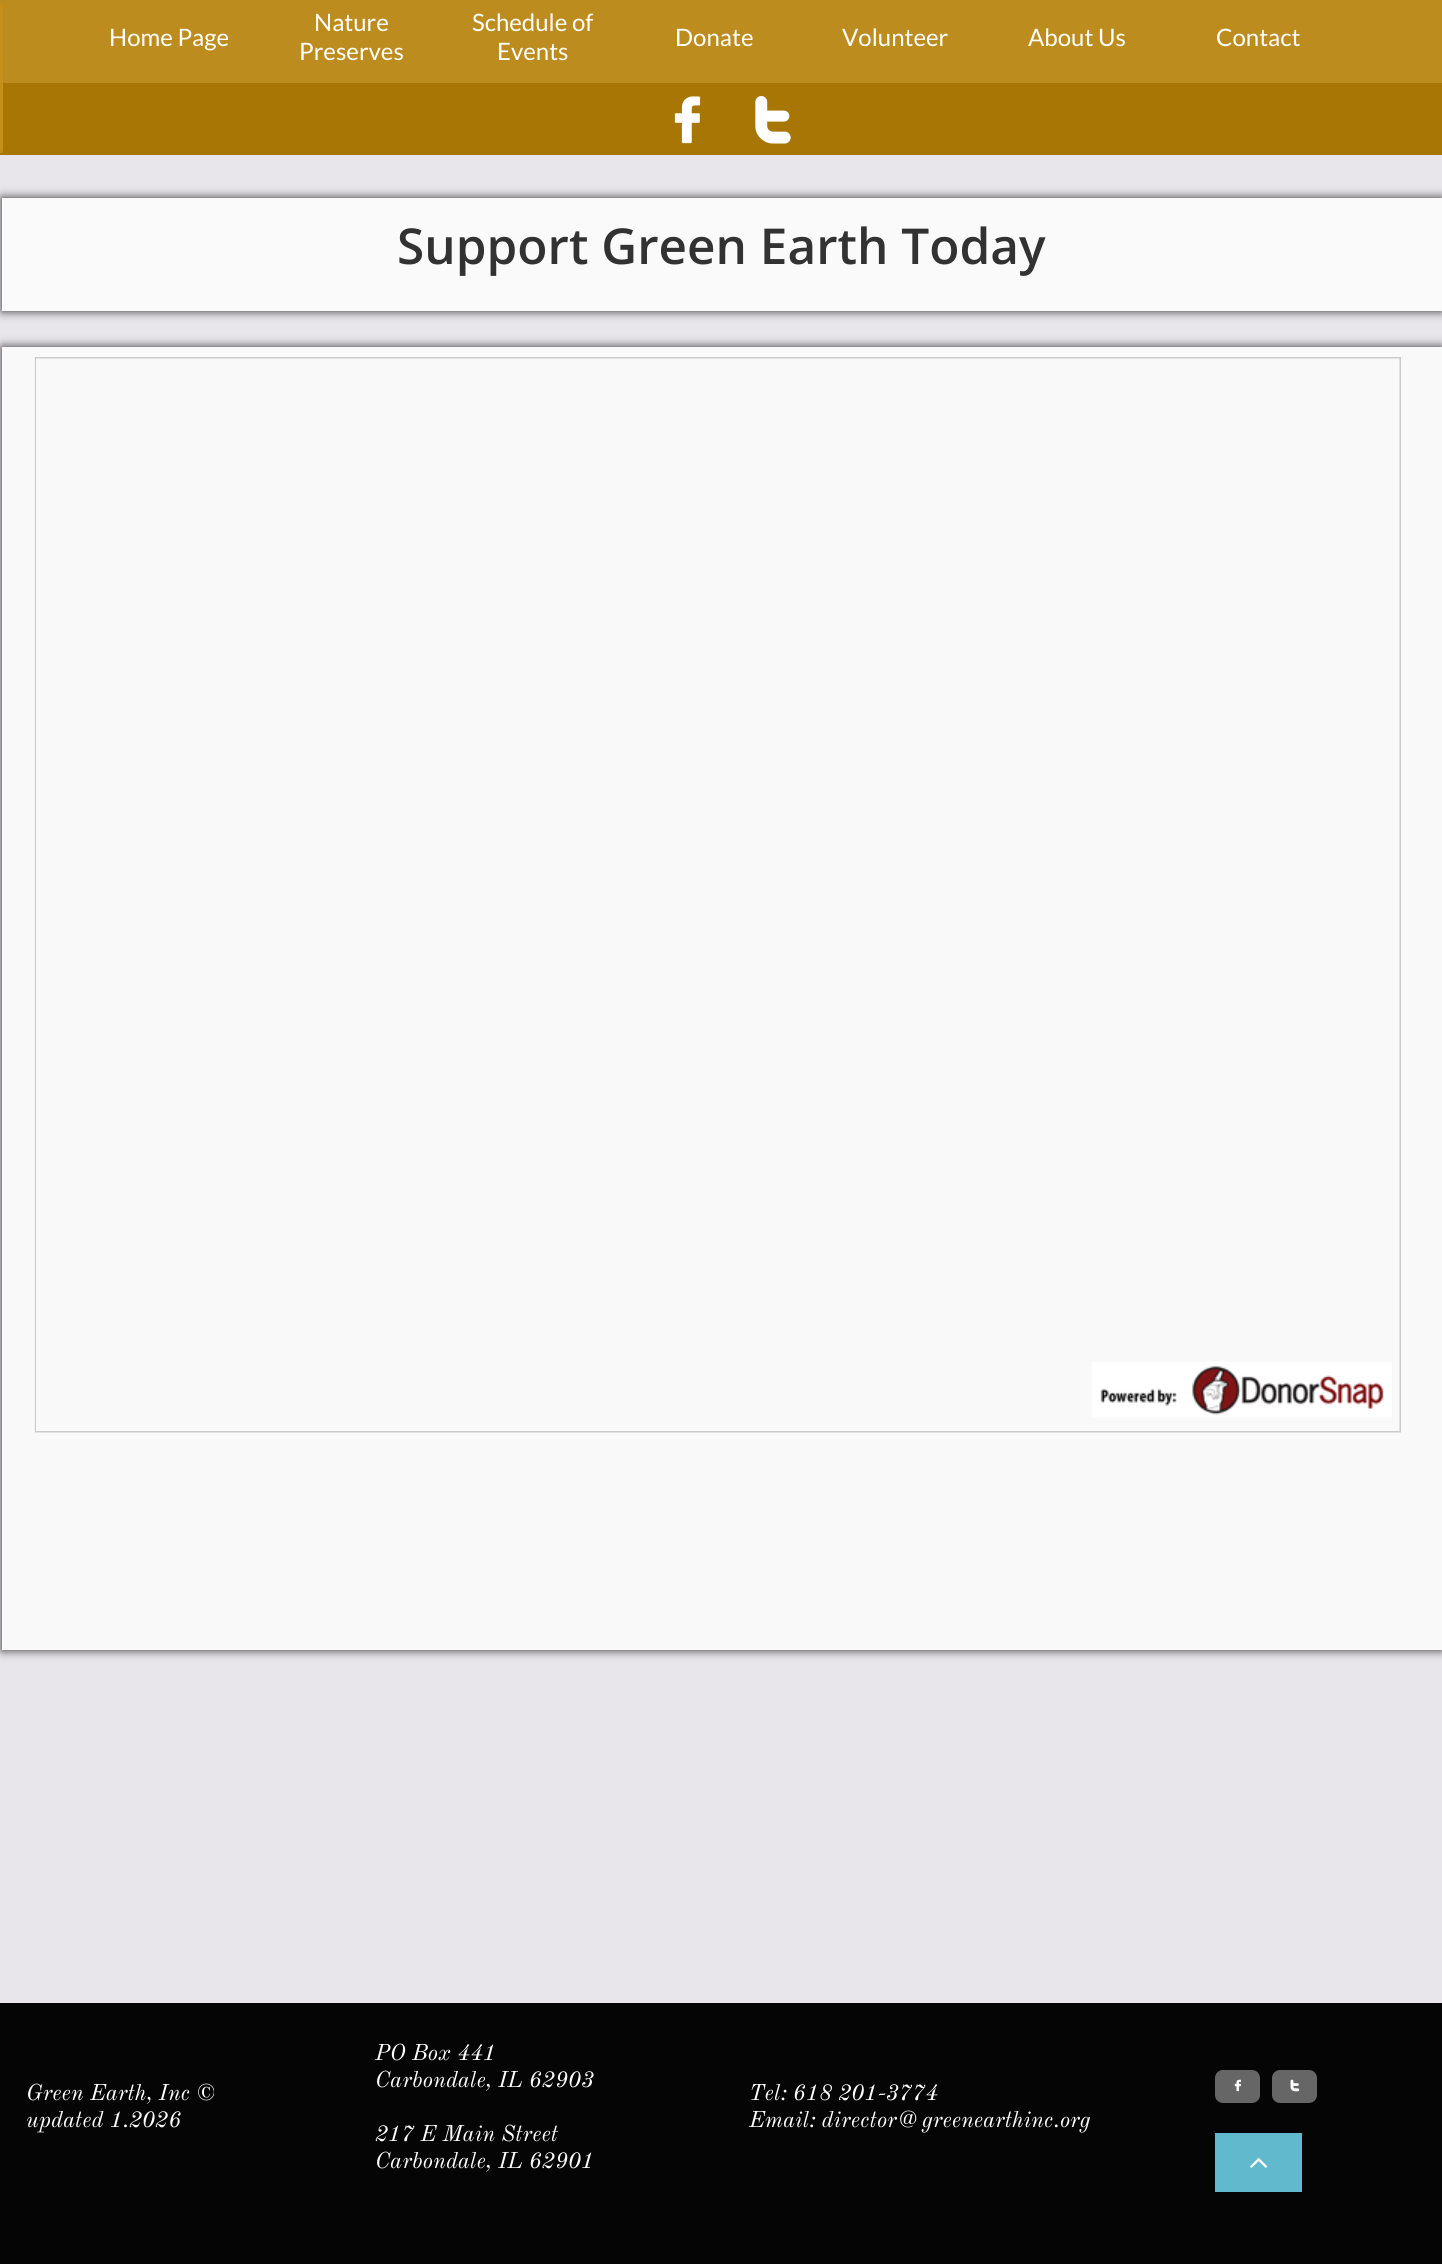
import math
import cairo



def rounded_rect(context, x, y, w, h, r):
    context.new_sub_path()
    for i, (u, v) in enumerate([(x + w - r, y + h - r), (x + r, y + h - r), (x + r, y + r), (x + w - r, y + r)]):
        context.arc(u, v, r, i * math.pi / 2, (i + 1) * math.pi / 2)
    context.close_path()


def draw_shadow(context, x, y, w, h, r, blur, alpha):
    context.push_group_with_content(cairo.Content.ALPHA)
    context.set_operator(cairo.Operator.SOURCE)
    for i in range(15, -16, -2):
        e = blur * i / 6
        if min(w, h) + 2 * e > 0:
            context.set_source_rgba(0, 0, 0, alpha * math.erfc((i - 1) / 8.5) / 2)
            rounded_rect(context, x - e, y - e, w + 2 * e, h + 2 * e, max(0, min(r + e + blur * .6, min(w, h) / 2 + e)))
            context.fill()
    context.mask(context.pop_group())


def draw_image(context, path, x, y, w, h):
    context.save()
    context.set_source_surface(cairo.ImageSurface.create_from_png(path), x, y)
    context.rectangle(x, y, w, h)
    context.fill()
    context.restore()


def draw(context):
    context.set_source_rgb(232 / 255, 229 / 255, 235 / 255)
    context.paint()
    context.set_source_rgb(189 / 255, 140 / 255, 31 / 255)
    context.rectangle(0, 0, 1442, 83)
    context.fill()
    context.set_source_rgb(167 / 255, 118 / 255, 5 / 255)
    context.rectangle(0, 83, 1442, 72)
    context.fill()
    draw_image(context, "images/1.png", 0, 4, 3, 149)
    draw_image(context, "images/2.png", 674, 96, 27, 48)
    draw_image(context, "images/3.png", 755, 96, 36, 48)
    context.set_source_rgb(250 / 255, 250 / 255, 251 / 255)
    context.rectangle(2, 198, 1440, 113)
    context.fill()
    context.save()
    context.set_fill_rule(cairo.FillRule.EVEN_ODD)
    context.new_path()
    context.move_to(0, 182)
    context.line_to(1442, 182)
    context.line_to(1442, 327)
    context.line_to(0, 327)
    context.close_path()
    context.move_to(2, 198)
    context.line_to(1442, 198)
    context.line_to(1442, 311)
    context.line_to(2, 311)
    context.close_path()
    context.clip()
    context.set_source_rgb(46 / 255, 46 / 255, 47 / 255)
    draw_shadow(context, 2, 198, 1440, 113, 0, 5, 1)
    context.restore()
    context.set_source_rgb(249 / 255, 249 / 255, 250 / 255)
    context.rectangle(2, 347, 1440, 1303)
    context.fill()
    context.save()
    context.set_fill_rule(cairo.FillRule.EVEN_ODD)
    context.new_path()
    context.move_to(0, 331)
    context.line_to(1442, 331)
    context.line_to(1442, 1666)
    context.line_to(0, 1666)
    context.close_path()
    context.move_to(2, 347)
    context.line_to(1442, 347)
    context.line_to(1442, 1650)
    context.line_to(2, 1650)
    context.close_path()
    context.clip()
    context.set_source_rgb(46 / 255, 46 / 255, 47 / 255)
    draw_shadow(context, 2, 347, 1440, 1303, 0, 5, 1)
    context.restore()
    draw_image(context, "images/4.png", 34, 357, 1367, 1076)
    context.set_source_rgb(5 / 255, 5 / 255, 5 / 255)
    context.rectangle(0, 2003, 1442, 261)
    context.fill()
    context.set_source_rgb(102 / 255, 102 / 255, 102 / 255)
    rounded_rect(context, 1215, 2070, 45, 33, 8)
    context.fill()
    draw_image(context, "images/5.png", 1234, 2079, 7, 13)
    rounded_rect(context, 1272, 2070, 45, 33, 8)
    context.fill()
    draw_image(context, "images/6.png", 1290, 2079, 10, 13)
    context.set_source_rgb(96 / 255, 185 / 255, 205 / 255)
    context.rectangle(1215, 2133, 87, 59)
    context.fill()
    draw_image(context, "images/7.png", 1250, 2158, 18, 10)
    context.select_font_face("Lato")
    context.set_font_size(24)
    context.set_source_rgb(1, 1, 1)
    context.move_to(109, 46)
    context.show_text("Home Page")
    context.move_to(314, 31)
    context.show_text("Nature")
    context.move_to(299, 60)
    context.show_text("Preserves")
    context.move_to(472, 31)
    context.show_text("Schedule of")
    context.move_to(497, 60)
    context.show_text("Events")
    context.move_to(675, 46)
    context.show_text("Donate")
    context.move_to(842, 46)
    context.show_text("Volunteer")
    context.move_to(1028, 46)
    context.show_text("About Us")
    context.move_to(1216, 46)
    context.show_text("Contact")
    context.select_font_face("Open Sans SemiBold")
    context.set_font_size(49.5)
    context.set_source_rgb(50 / 255, 50 / 255, 51 / 255)
    context.move_to(397, 264)
    context.show_text("Support Green Earth Today")
    context.select_font_face("Old Standard TT", cairo.FontSlant.ITALIC)
    context.set_font_size(22.5)
    context.set_source_rgb(1, 1, 1)
    context.move_to(26, 2100)
    context.show_text("Green Earth, Inc ©")
    context.move_to(26, 2127)
    context.show_text("updated 1.2026")
    context.move_to(375, 2060)
    context.show_text("PO Box 441")
    context.move_to(375, 2087)
    context.show_text("Carbondale, IL 62903")
    context.move_to(375, 2141)
    context.show_text("217 E Main Street")
    context.move_to(375, 2168)
    context.show_text("Carbondale, IL 62901")
    context.move_to(749, 2100)
    context.show_text("Tel: 618 201-3774")
    context.move_to(749, 2127)
    context.show_text("Email: director")
    context.move_to(898, 2127)
    context.show_text("@")
    context.move_to(922, 2127)
    context.show_text("greenearthinc.org")


surface = cairo.ImageSurface(cairo.Format.RGB24, 1442, 2264)
context = cairo.Context(surface)
options = cairo.FontOptions()
options.set_hint_metrics(cairo.HintMetrics.OFF)
options.set_hint_style(cairo.HintStyle.NONE)
context.set_font_options(options)
context.set_miter_limit(4)
draw(context)
surface.write_to_png("out.png")
